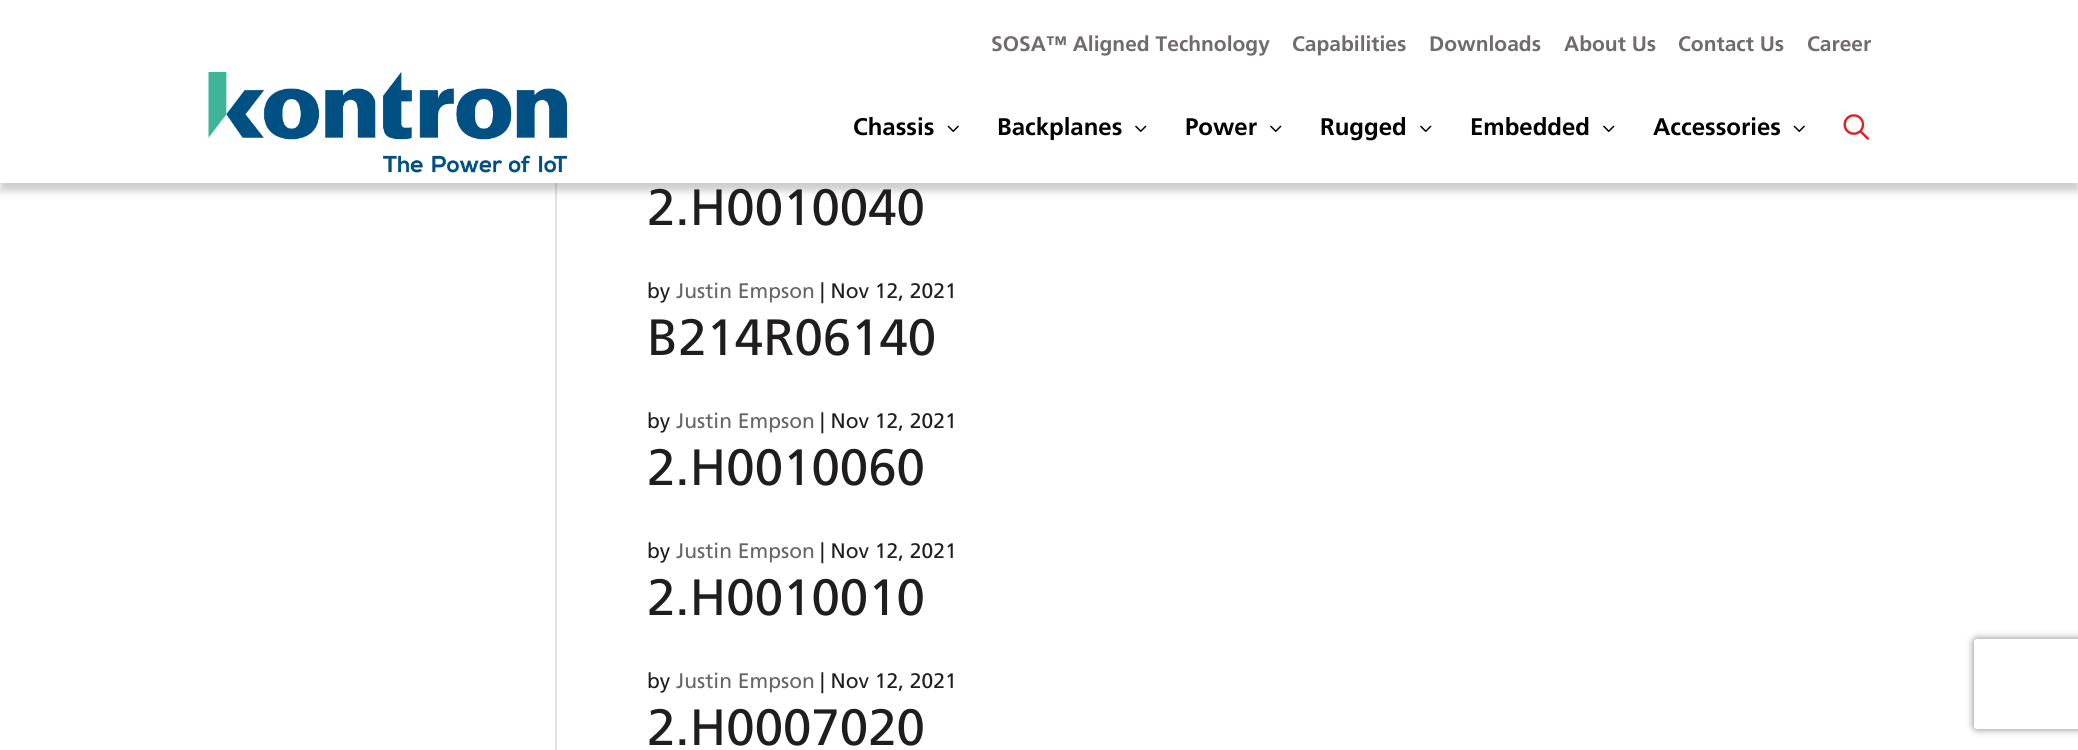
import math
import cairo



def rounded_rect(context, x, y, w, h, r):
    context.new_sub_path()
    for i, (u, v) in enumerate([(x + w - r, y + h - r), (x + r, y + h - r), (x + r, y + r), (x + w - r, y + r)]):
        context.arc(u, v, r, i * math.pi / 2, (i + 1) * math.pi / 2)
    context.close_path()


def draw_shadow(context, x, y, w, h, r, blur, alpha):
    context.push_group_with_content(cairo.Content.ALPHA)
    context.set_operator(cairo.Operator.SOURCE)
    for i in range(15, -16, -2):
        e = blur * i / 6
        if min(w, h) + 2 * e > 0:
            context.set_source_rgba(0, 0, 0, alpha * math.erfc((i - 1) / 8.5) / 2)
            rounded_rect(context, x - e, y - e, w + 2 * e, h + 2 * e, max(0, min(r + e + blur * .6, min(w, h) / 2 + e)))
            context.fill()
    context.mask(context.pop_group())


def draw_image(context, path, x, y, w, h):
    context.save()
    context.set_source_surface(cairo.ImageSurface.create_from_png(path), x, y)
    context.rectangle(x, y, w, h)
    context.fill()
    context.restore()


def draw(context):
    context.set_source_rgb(1, 1, 1)
    context.paint()
    context.set_source_rgb(226 / 255, 226 / 255, 226 / 255)
    context.rectangle(555, 183, 2, 567)
    context.fill()
    context.set_source_rgb(0, 0, 0)
    draw_shadow(context, 0, 80, 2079, 111, 0, 4, 0.2)
    context.set_source_rgb(1, 1, 1)
    context.rectangle(0, 73, 2078, 110)
    context.fill()
    draw_image(context, "images/1.png", 208, 72, 359, 101)
    draw_image(context, "images/2.png", 947, 125, 12, 7)
    draw_image(context, "images/3.png", 1135, 125, 12, 7)
    draw_image(context, "images/3.png", 1270, 125, 12, 7)
    draw_image(context, "images/3.png", 1420, 125, 12, 7)
    draw_image(context, "images/3.png", 1603, 125, 12, 7)
    draw_image(context, "images/2.png", 1793, 125, 12, 7)
    draw_image(context, "images/4.png", 1843, 114, 26, 26)
    context.save()
    context.set_fill_rule(cairo.FillRule.EVEN_ODD)
    context.new_path()
    context.move_to(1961, 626)
    context.line_to(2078, 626)
    context.line_to(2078, 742)
    context.line_to(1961, 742)
    context.close_path()
    context.move_to(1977, 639)
    context.line_to(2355, 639)
    context.curve_to(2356.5, 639, 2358, 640.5, 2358, 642)
    context.line_to(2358, 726)
    context.curve_to(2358, 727.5, 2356.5, 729, 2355, 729)
    context.line_to(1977, 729)
    context.curve_to(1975.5, 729, 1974, 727.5, 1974, 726)
    context.line_to(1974, 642)
    context.curve_to(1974, 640.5, 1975.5, 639, 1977, 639)
    context.close_path()
    context.clip()
    context.set_source_rgb(128 / 255, 128 / 255, 128 / 255)
    draw_shadow(context, 1974, 639, 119, 90, 3, 4, 1)
    context.restore()
    context.select_font_face("Frutiger", cairo.FontSlant.NORMAL, cairo.FontWeight.BOLD)
    context.set_font_size(21)
    context.set_source_rgb(113 / 255, 108 / 255, 108 / 255)
    context.move_to(991, 51)
    context.show_text("SOSA™ Aligned Technology")
    context.move_to(1292, 51)
    context.show_text("Capabilities")
    context.move_to(1429, 51)
    context.show_text("Downloads")
    context.move_to(1564, 51)
    context.show_text("About Us")
    context.move_to(1678, 51)
    context.show_text("Contact Us")
    context.move_to(1807, 51)
    context.show_text("Career")
    context.set_font_size(24)
    context.set_source_rgb(0, 0, 0)
    context.move_to(853, 135)
    context.show_text("Chassis")
    context.move_to(997, 135)
    context.show_text("Backplanes")
    context.move_to(1185, 135)
    context.show_text("Power")
    context.move_to(1320, 135)
    context.show_text("Rugged")
    context.move_to(1470, 135)
    context.show_text("Embedded")
    context.move_to(1653, 135)
    context.show_text("Accessories")
    context.select_font_face("Frutiger")
    context.set_font_size(51)
    context.set_source_rgb(32 / 255, 29 / 255, 30 / 255)
    context.move_to(647, 225)
    context.show_text("2.H0010040")
    context.set_font_size(21)
    context.move_to(647, 298)
    context.show_text("by")
    context.set_source_rgb(102 / 255, 102 / 255, 102 / 255)
    context.move_to(676, 298)
    context.show_text("Justin Empson")
    context.set_source_rgb(32 / 255, 29 / 255, 30 / 255)
    context.move_to(820, 298)
    context.show_text("| Nov 12, 2021")
    context.set_font_size(51)
    context.move_to(647, 355)
    context.show_text("B214R06140")
    context.set_font_size(21)
    context.move_to(647, 428)
    context.show_text("by")
    context.set_source_rgb(102 / 255, 102 / 255, 102 / 255)
    context.move_to(676, 428)
    context.show_text("Justin Empson")
    context.set_source_rgb(32 / 255, 29 / 255, 30 / 255)
    context.move_to(820, 428)
    context.show_text("| Nov 12, 2021")
    context.set_font_size(51)
    context.move_to(647, 485)
    context.show_text("2.H0010060")
    context.set_font_size(21)
    context.move_to(647, 558)
    context.show_text("by")
    context.set_source_rgb(102 / 255, 102 / 255, 102 / 255)
    context.move_to(676, 558)
    context.show_text("Justin Empson")
    context.set_source_rgb(32 / 255, 29 / 255, 30 / 255)
    context.move_to(820, 558)
    context.show_text("| Nov 12, 2021")
    context.set_font_size(51)
    context.move_to(647, 615)
    context.show_text("2.H0010010")
    context.set_font_size(21)
    context.move_to(647, 688)
    context.show_text("by")
    context.set_source_rgb(102 / 255, 102 / 255, 102 / 255)
    context.move_to(676, 688)
    context.show_text("Justin Empson")
    context.set_source_rgb(32 / 255, 29 / 255, 30 / 255)
    context.move_to(820, 688)
    context.show_text("| Nov 12, 2021")
    context.set_font_size(51)
    context.move_to(647, 745)
    context.show_text("2.H0007020")


surface = cairo.ImageSurface(cairo.Format.RGB24, 2078, 750)
context = cairo.Context(surface)
options = cairo.FontOptions()
options.set_hint_metrics(cairo.HintMetrics.OFF)
options.set_hint_style(cairo.HintStyle.NONE)
context.set_font_options(options)
context.set_miter_limit(4)
draw(context)
surface.write_to_png("out.png")
